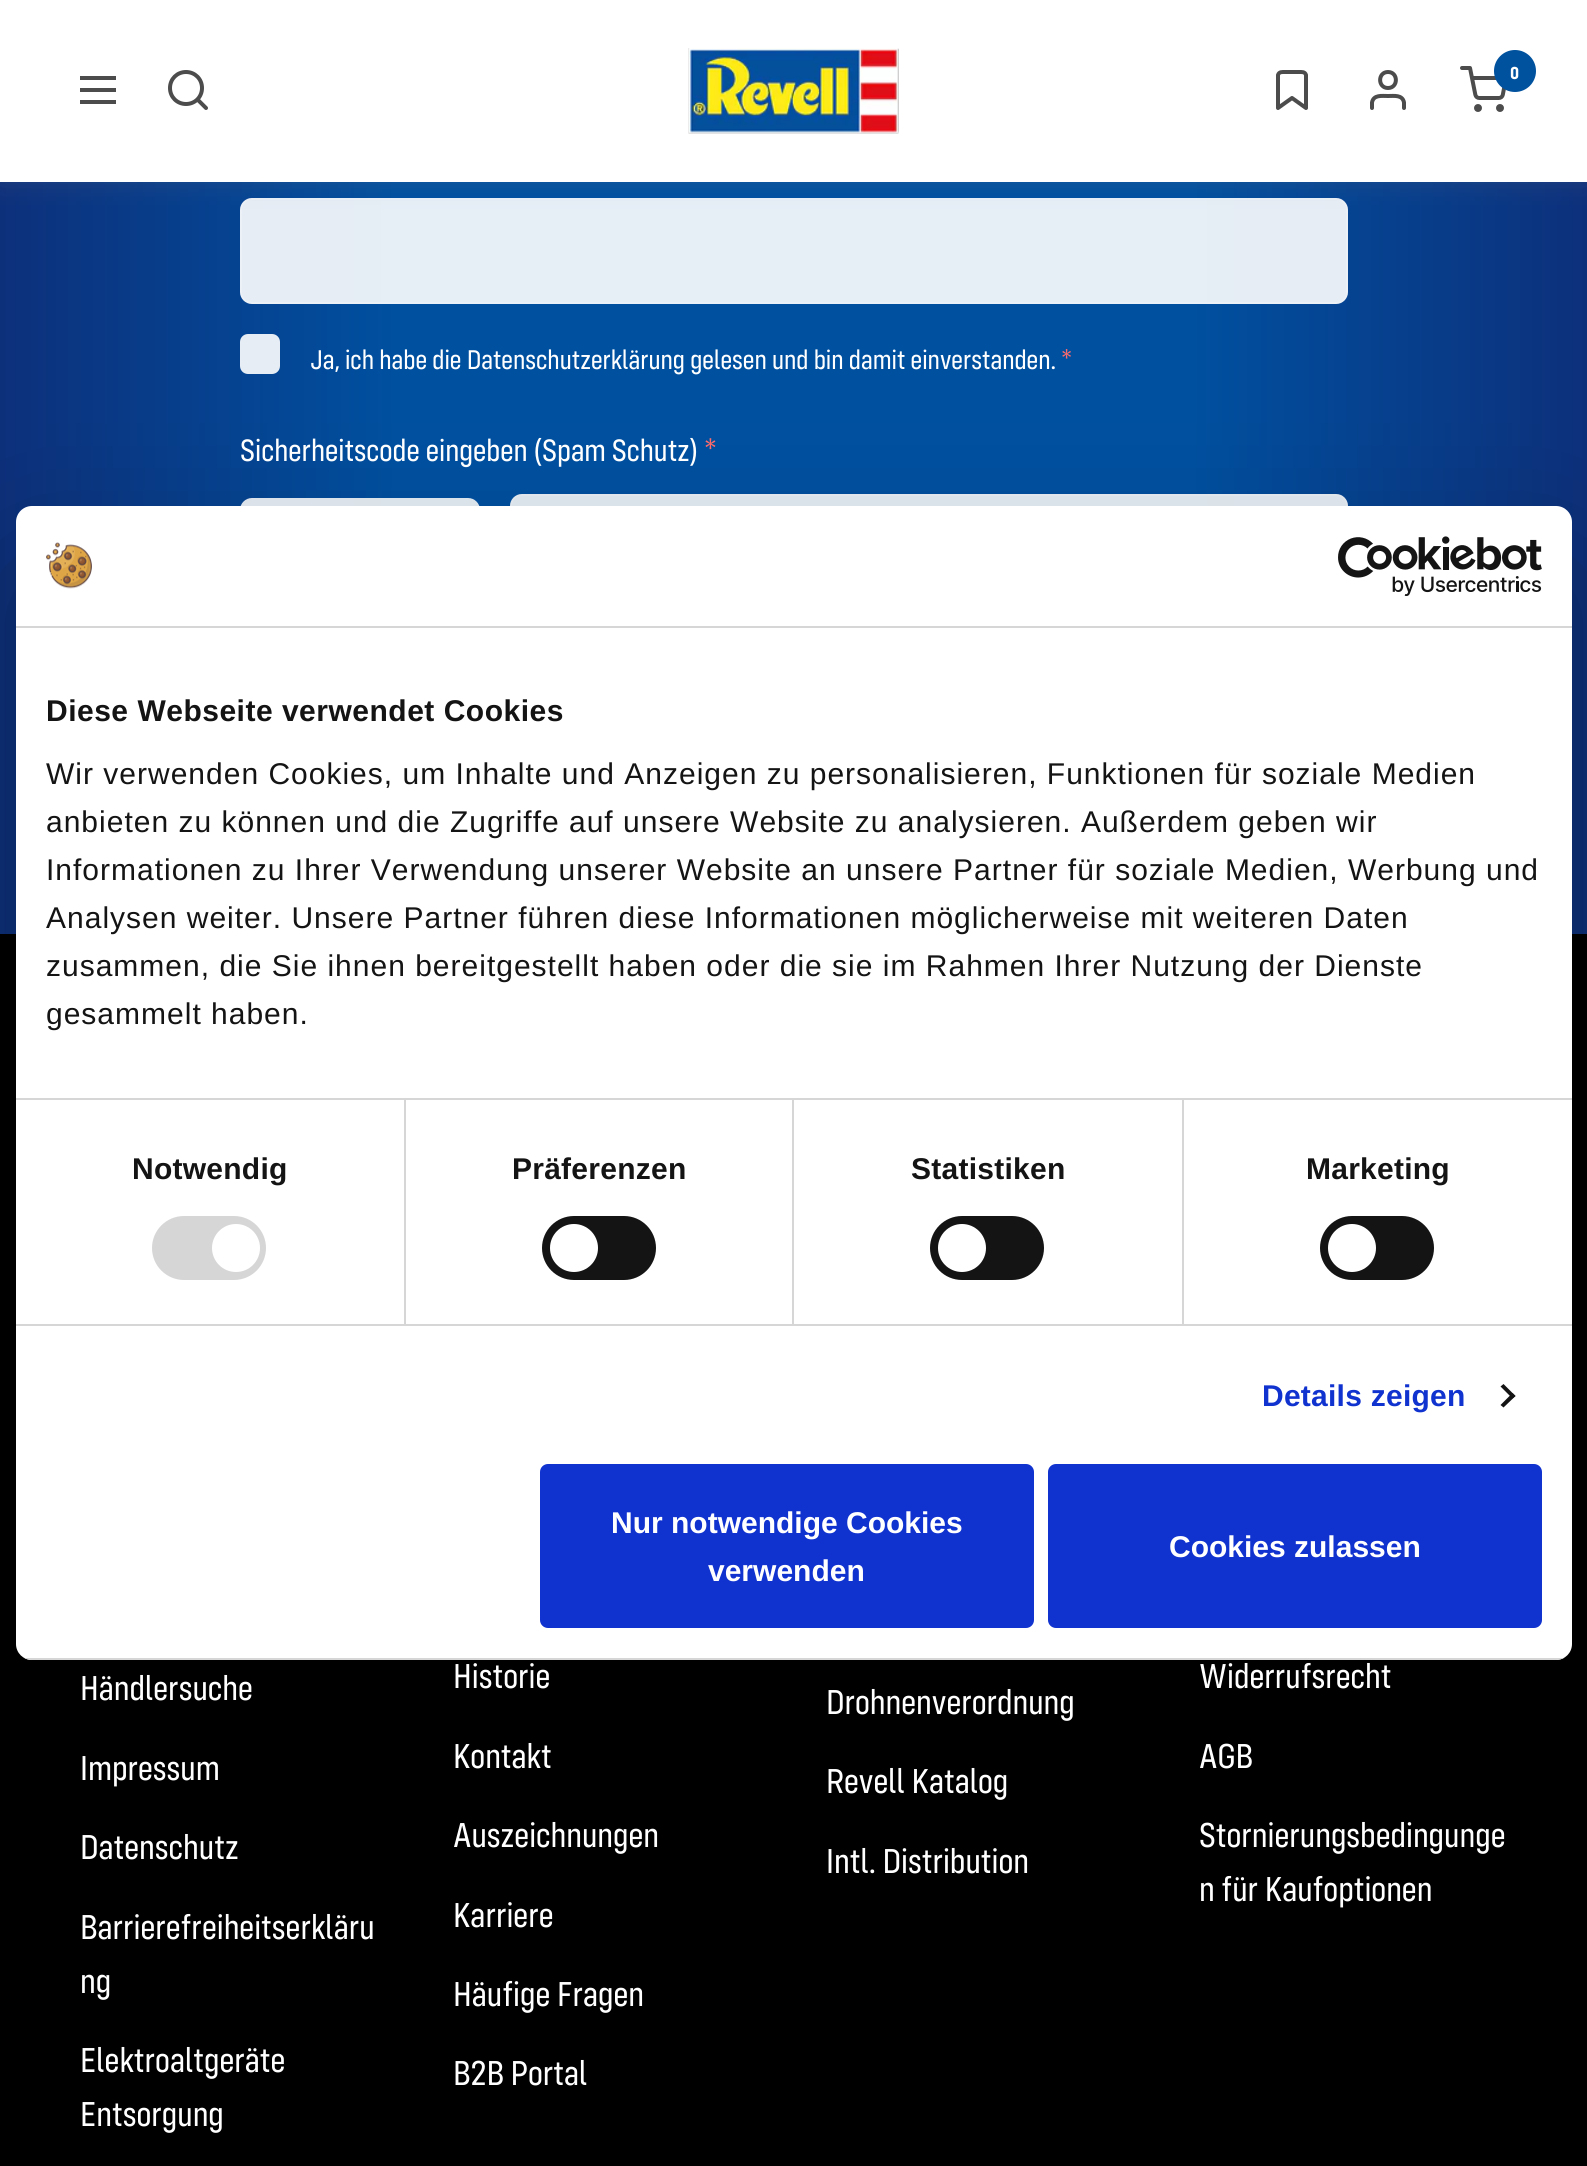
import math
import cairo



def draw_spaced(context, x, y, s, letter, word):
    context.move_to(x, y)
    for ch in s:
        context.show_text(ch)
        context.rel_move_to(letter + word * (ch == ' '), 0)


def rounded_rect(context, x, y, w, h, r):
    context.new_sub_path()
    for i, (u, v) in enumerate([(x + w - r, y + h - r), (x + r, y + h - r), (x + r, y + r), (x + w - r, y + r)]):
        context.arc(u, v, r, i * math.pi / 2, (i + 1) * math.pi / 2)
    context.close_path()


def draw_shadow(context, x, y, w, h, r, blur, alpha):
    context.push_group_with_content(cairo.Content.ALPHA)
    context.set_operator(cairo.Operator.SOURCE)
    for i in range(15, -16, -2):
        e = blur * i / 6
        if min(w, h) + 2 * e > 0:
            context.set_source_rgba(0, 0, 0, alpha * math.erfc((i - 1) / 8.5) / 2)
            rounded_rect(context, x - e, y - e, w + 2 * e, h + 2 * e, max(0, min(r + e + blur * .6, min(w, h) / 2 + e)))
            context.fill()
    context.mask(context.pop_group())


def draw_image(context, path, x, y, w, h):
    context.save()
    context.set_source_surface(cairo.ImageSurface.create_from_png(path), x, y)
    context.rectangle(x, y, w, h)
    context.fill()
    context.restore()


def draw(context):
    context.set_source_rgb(0, 0, 0)
    context.paint()
    gradient = cairo.LinearGradient(0, 364, 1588, 364)
    gradient.add_color_stop_rgba(0, 13 / 255, 48 / 255, 123 / 255, 1)
    gradient.add_color_stop_rgba(0.25, 0, 80 / 255, 160 / 255, 1)
    gradient.add_color_stop_rgba(0.75, 0, 80 / 255, 160 / 255, 1)
    gradient.add_color_stop_rgba(1, 13 / 255, 48 / 255, 123 / 255, 1)
    context.set_source(gradient)
    context.rectangle(0, 182, 1587, 752)
    context.fill()
    context.set_source_rgba(1, 1, 1, 0.9)
    rounded_rect(context, 240, 198, 1108, 106, 12)
    context.fill()
    rounded_rect(context, 241, 199, 1106, 104, 11)
    context.set_source_rgba(1, 1, 1, 0.2)
    context.stroke()
    context.set_source_rgb(107 / 255, 114 / 255, 128 / 255)
    draw_shadow(context, 0, 0, 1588, 182, 0, 12.5, 0.23)
    context.set_source_rgb(1, 1, 1)
    context.rectangle(0, 0, 1587, 182)
    context.fill()
    context.new_path()
    context.move_to(80, 78)
    context.line_to(116, 78)
    context.move_to(80, 102)
    context.line_to(116, 102)
    context.close_path()
    context.move_to(80, 90)
    context.line_to(116, 90)
    context.close_path()
    context.set_source_rgb(76 / 255, 76 / 255, 76 / 255)
    context.set_line_width(4)
    context.stroke()
    context.new_path()
    context.move_to(186, 104)
    context.curve_to(195, 104, 202, 97, 202, 88)
    context.curve_to(202, 79, 195, 72, 186, 72)
    context.curve_to(177, 72, 170, 79, 170, 88)
    context.curve_to(170, 97, 177, 104, 186, 104)
    context.close_path()
    context.move_to(206, 108)
    context.line_to(197.5, 99.5)
    context.set_line_cap(cairo.LineCap.ROUND)
    context.set_line_join(cairo.LineJoin.ROUND)
    context.stroke()
    draw_image(context, "images/1.png", 688, 48, 211, 86)
    context.new_path()
    context.move_to(1306, 108)
    context.line_to(1292, 98)
    context.line_to(1278, 108)
    context.line_to(1278, 75)
    context.curve_to(1279, 71.5, 1282.5, 72, 1285.5, 72)
    context.line_to(1298.5, 72)
    context.curve_to(1301.5, 72, 1305, 71.5, 1306, 75)
    context.close_path()
    context.stroke()
    context.new_path()
    context.move_to(1404, 108)
    context.line_to(1404, 102.5)
    context.curve_to(1402.5, 94.5, 1394, 96, 1388, 96)
    context.curve_to(1382, 96, 1373.5, 94.5, 1372, 102.5)
    context.line_to(1372, 108)
    context.move_to(1388, 88)
    context.curve_to(1398.5, 88, 1398.5, 72, 1388, 72)
    context.curve_to(1377.5, 72, 1377.5, 88, 1388, 88)
    context.close_path()
    context.stroke()
    draw_image(context, "images/2.png", 1460, 66, 46, 46)
    context.set_source_rgb(0, 81 / 255, 158 / 255)
    context.arc(1515, 71, 21, 0, 2 * math.pi)
    context.fill()
    context.set_source_rgba(1, 1, 1, 0.9)
    rounded_rect(context, 240, 334, 40, 40, 8)
    context.fill()
    rounded_rect(context, 240, 498, 240, 100, 12)
    context.fill()
    rounded_rect(context, 510, 494, 838, 108, 12)
    context.fill()
    rounded_rect(context, 511, 495, 836, 106, 11)
    context.set_source_rgba(1, 1, 1, 0.2)
    context.set_line_width(2)
    context.set_line_cap(cairo.LineCap.BUTT)
    context.set_line_join(cairo.LineJoin.MITER)
    context.stroke()
    context.set_source_rgb(0, 0, 0)
    draw_shadow(context, 16, 570, 1556, 1154, 16, 68, 0.3)
    context.set_source_rgb(1, 1, 1)
    rounded_rect(context, 16, 506, 1556, 1154, 16)
    context.fill()
    context.set_source_rgb(214 / 255, 214 / 255, 214 / 255)
    context.rectangle(16, 626, 1556, 2)
    context.fill()
    draw_image(context, "images/3.png", 46, 542, 46, 47)
    draw_image(context, "images/4.png", 1338, 536, 204, 60)
    context.rectangle(16, 1098, 1556, 2)
    context.fill()
    context.rectangle(16, 1324, 1556, 2)
    context.fill()
    context.rectangle(404, 1100, 2, 224)
    context.fill()
    rounded_rect(context, 152, 1216, 114, 64, 32)
    context.fill()
    context.set_source_rgb(1, 1, 1)
    context.arc(236, 1248, 24, 0, 2 * math.pi)
    context.fill()
    context.set_source_rgb(214 / 255, 214 / 255, 214 / 255)
    context.rectangle(792, 1100, 2, 224)
    context.fill()
    context.set_source_rgb(20 / 255, 20 / 255, 20 / 255)
    rounded_rect(context, 542, 1216, 114, 64, 32)
    context.fill()
    context.set_source_rgb(1, 1, 1)
    context.arc(574, 1248, 24, 0, 2 * math.pi)
    context.fill()
    context.set_source_rgb(214 / 255, 214 / 255, 214 / 255)
    context.rectangle(1182, 1100, 2, 224)
    context.fill()
    context.set_source_rgb(20 / 255, 20 / 255, 20 / 255)
    rounded_rect(context, 930, 1216, 114, 64, 32)
    context.fill()
    context.set_source_rgb(1, 1, 1)
    context.arc(962, 1248, 24, 0, 2 * math.pi)
    context.fill()
    context.set_source_rgb(20 / 255, 20 / 255, 20 / 255)
    rounded_rect(context, 1320, 1216, 114, 64, 32)
    context.fill()
    context.set_source_rgb(1, 1, 1)
    context.arc(1352, 1248, 24, 0, 2 * math.pi)
    context.fill()
    context.set_source_rgb(20 / 255, 20 / 255, 20 / 255)
    context.new_path()
    context.move_to(1503.5, 1384)
    context.line_to(1515.5, 1396)
    context.line_to(1512.5, 1398.5)
    context.line_to(1500.5, 1386.5)
    context.close_path()
    context.fill()
    context.new_path()
    context.move_to(1512.5, 1393)
    context.line_to(1515.5, 1396)
    context.line_to(1503.5, 1407.5)
    context.line_to(1500.5, 1405)
    context.close_path()
    context.fill()
    context.save()
    rounded_rect(context, 16, 506, 1556, 1154, 16)
    context.clip()
    context.set_source_rgb(214 / 255, 214 / 255, 214 / 255)
    context.rectangle(16, 1658, 1556, 2)
    context.fill()
    context.restore()
    context.set_source_rgb(16 / 255, 50 / 255, 207 / 255)
    rounded_rect(context, 542, 1466, 490, 160, 6)
    context.fill_preserve()
    context.set_line_width(4)
    context.stroke()
    rounded_rect(context, 1050, 1466, 490, 160, 6)
    context.fill_preserve()
    context.stroke()
    context.select_font_face("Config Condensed", cairo.FontSlant.NORMAL, cairo.FontWeight.BOLD)
    context.set_font_size(18)
    context.set_source_rgb(1, 1, 1)
    context.move_to(1510, 79)
    context.show_text("0")
    context.select_font_face("Config Condensed")
    context.set_font_size(28)
    context.move_to(310, 369)
    context.show_text("Ja, ich habe die Datenschutzerklärung gelesen und bin damit einverstanden.")
    context.set_source_rgb(1, 107 / 255, 107 / 255)
    context.move_to(1061, 369)
    context.show_text("*")
    context.set_font_size(32)
    context.set_source_rgb(1, 1, 1)
    context.move_to(240, 461)
    context.show_text("Sicherheitscode eingeben (Spam Schutz)")
    context.set_source_rgb(1, 107 / 255, 107 / 255)
    context.move_to(704, 461)
    context.show_text("*")
    context.select_font_face("Liberation Sans", cairo.FontSlant.NORMAL, cairo.FontWeight.BOLD)
    context.set_font_size(30)
    context.set_source_rgb(20 / 255, 20 / 255, 20 / 255)
    draw_spaced(context, 46, 721, "Diese Webseite verwendet Cookies", 0.5, 0)
    context.select_font_face("Liberation Sans")
    draw_spaced(context, 46, 784, "Wir verwenden Cookies, um Inhalte und Anzeigen zu personalisieren, Funktionen für soziale Medien", 1, 0)
    draw_spaced(context, 46, 832, "anbieten zu können und die Zugriffe auf unsere Website zu analysieren. Außerdem geben wir", 1, 0)
    draw_spaced(context, 46, 880, "Informationen zu Ihrer Verwendung unserer Website an unsere Partner für soziale Medien, Werbung und", 1, 0)
    draw_spaced(context, 46, 928, "Analysen weiter. Unsere Partner führen diese Informationen möglicherweise mit weiteren Daten", 1, 0)
    draw_spaced(context, 46, 976, "zusammen, die Sie ihnen bereitgestellt haben oder die sie im Rahmen Ihrer Nutzung der Dienste", 1, 0)
    draw_spaced(context, 46, 1024, "gesammelt haben.", 1, 0)
    context.select_font_face("Liberation Sans", cairo.FontSlant.NORMAL, cairo.FontWeight.BOLD)
    draw_spaced(context, 132, 1179, "Notwendig", 0.25, 0)
    draw_spaced(context, 512, 1179, "Präferenzen", 0.25, 0)
    draw_spaced(context, 911, 1179, "Statistiken", 0.25, 0)
    draw_spaced(context, 1306, 1179, "Marketing", 0.25, 0)
    context.set_source_rgb(16 / 255, 50 / 255, 207 / 255)
    draw_spaced(context, 1262, 1406, "Details zeigen", 0.25, 0)
    context.set_source_rgb(1, 1, 1)
    context.move_to(611, 1533)
    context.show_text("Nur notwendige Cookies")
    context.move_to(708, 1581)
    context.show_text("verwenden")
    context.move_to(1169, 1557)
    context.show_text("Cookies zulassen")
    context.select_font_face("Config Condensed")
    context.set_font_size(35.75)
    context.move_to(80, 1700)
    context.show_text("Händlersuche")
    context.move_to(80, 1780)
    context.show_text("Impressum")
    context.move_to(80, 1859)
    context.show_text("Datenschutz")
    context.move_to(80, 1939)
    context.show_text("Barrierefreiheitserkläru")
    context.move_to(80, 1993)
    context.show_text("ng")
    context.move_to(80, 2072)
    context.show_text("Elektroaltgeräte")
    context.move_to(80, 2126)
    context.show_text("Entsorgung")
    context.move_to(453, 1688)
    context.show_text("Historie")
    context.move_to(453, 1768)
    context.show_text("Kontakt")
    context.move_to(453, 1847)
    context.show_text("Auszeichnungen")
    context.move_to(453, 1927)
    context.show_text("Karriere")
    context.move_to(453, 2006)
    context.show_text("Häufige Fragen")
    context.move_to(453, 2085)
    context.show_text("B2B Portal")
    context.move_to(826, 1714)
    context.show_text("Drohnenverordnung")
    context.move_to(826, 1793)
    context.show_text("Revell Katalog")
    context.move_to(826, 1873)
    context.show_text("Intl. Distribution")
    context.move_to(1199, 1688)
    context.show_text("Widerrufsrecht")
    context.move_to(1199, 1768)
    context.show_text("AGB")
    context.move_to(1199, 1847)
    context.show_text("Stornierungsbedingunge")
    context.move_to(1199, 1901)
    context.show_text("n für Kaufoptionen")


surface = cairo.ImageSurface(cairo.Format.RGB24, 1587, 2166)
context = cairo.Context(surface)
options = cairo.FontOptions()
options.set_hint_metrics(cairo.HintMetrics.OFF)
options.set_hint_style(cairo.HintStyle.NONE)
context.set_font_options(options)
context.set_miter_limit(4)
draw(context)
surface.write_to_png("out.png")
